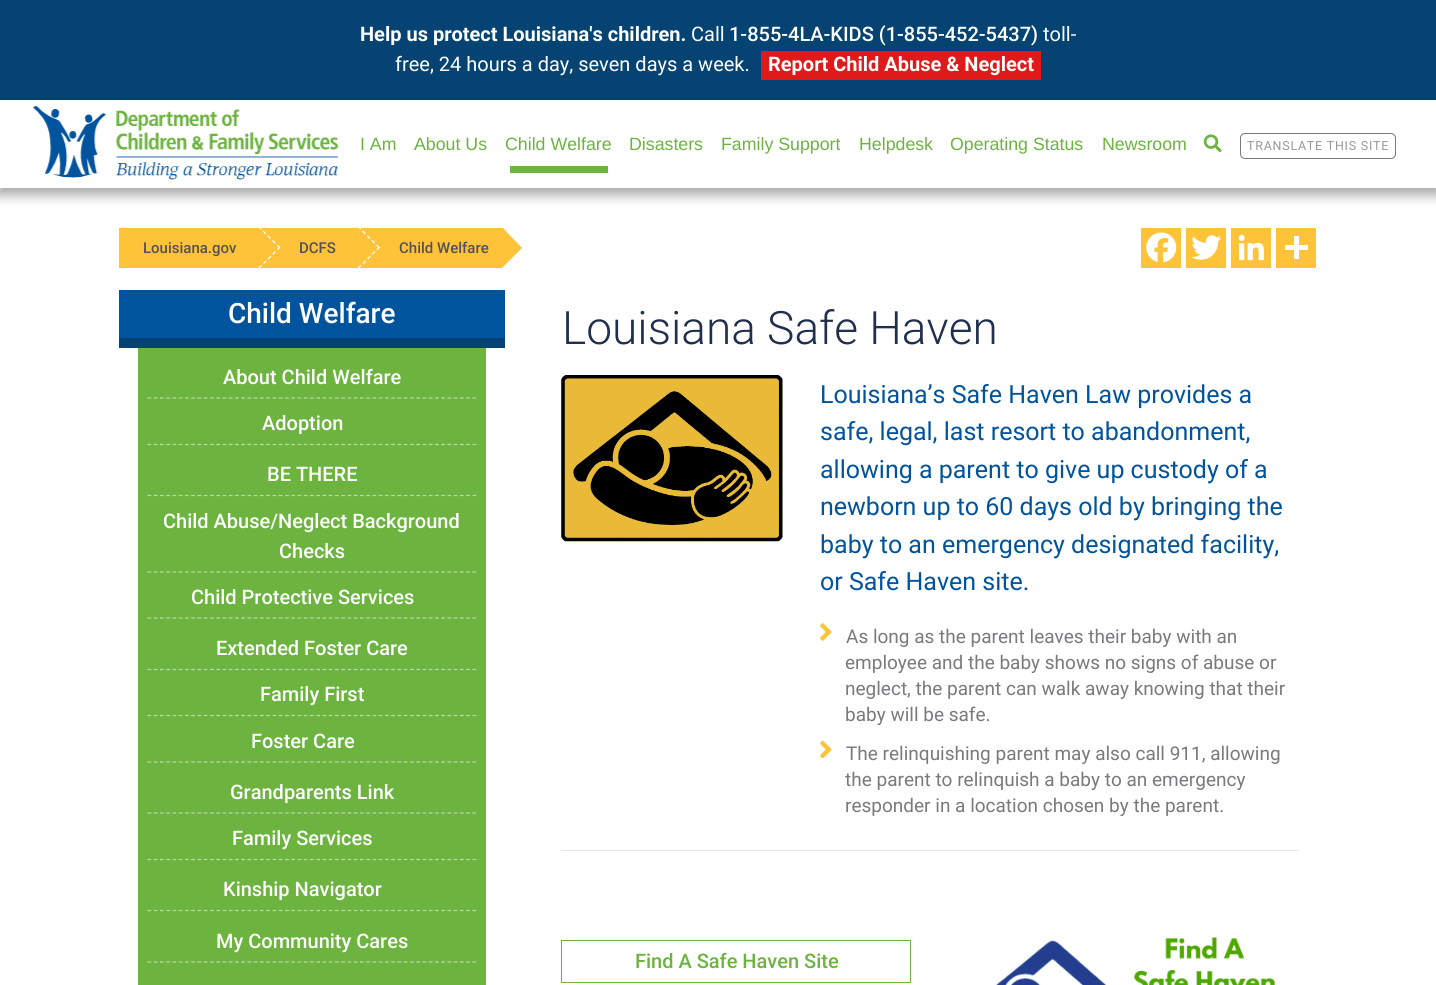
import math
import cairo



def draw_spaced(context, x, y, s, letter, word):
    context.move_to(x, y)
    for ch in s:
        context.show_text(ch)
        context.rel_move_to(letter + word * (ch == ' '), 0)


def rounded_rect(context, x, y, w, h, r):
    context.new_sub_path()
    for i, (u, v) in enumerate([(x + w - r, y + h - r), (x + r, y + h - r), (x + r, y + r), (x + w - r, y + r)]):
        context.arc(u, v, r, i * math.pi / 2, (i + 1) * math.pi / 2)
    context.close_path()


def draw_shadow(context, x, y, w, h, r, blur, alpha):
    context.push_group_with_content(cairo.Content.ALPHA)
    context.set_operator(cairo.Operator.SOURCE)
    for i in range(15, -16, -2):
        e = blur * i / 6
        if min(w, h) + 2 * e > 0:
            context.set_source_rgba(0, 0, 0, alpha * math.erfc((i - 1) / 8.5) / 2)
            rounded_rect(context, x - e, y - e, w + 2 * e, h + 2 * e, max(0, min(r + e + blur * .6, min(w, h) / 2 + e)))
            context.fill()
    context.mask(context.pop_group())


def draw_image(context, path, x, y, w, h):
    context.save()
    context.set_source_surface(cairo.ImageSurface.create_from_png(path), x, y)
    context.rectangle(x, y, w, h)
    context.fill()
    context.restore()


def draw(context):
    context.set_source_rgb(1, 1, 1)
    context.paint()
    context.set_source_rgb(0, 0, 0)
    draw_shadow(context, -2, 3, 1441, 192, 0, 6, 0.35)
    context.set_source_rgb(5 / 255, 68 / 255, 114 / 255)
    context.rectangle(0, 0, 1436, 100)
    context.fill()
    context.set_source_rgb(223 / 255, 26 / 255, 26 / 255)
    context.rectangle(761, 51, 280, 29)
    context.fill()
    context.set_source_rgb(1, 1, 1)
    context.rectangle(0, 100, 1436, 88)
    context.fill()
    draw_image(context, "images/1.png", 33, 106, 306, 74)
    context.set_source_rgb(108 / 255, 179 / 255, 63 / 255)
    context.rectangle(510, 166, 98, 7)
    context.fill()
    draw_image(context, "images/2.png", 1203, 134, 19, 19)
    rounded_rect(context, 1240.5, 133.5, 155, 25, 4.5)
    context.set_source_rgb(122 / 255, 121 / 255, 124 / 255)
    context.set_line_width(1)
    context.stroke()
    context.set_source_rgb(1, 195 / 255, 58 / 255)
    context.rectangle(119, 228, 381, 40)
    context.fill()
    context.save()
    context.rectangle(119, 228, 432, 40)
    context.clip()
    context.new_path()
    context.move_to(258.5, 226.5)
    context.line_to(280, 248)
    context.set_source_rgb(1, 1, 1)
    context.set_line_width(1.3)
    context.set_dash([3.75, 2.81])
    context.stroke()
    context.restore()
    context.new_path()
    context.move_to(280, 247)
    context.line_to(258.5, 268.5)
    context.set_source_rgb(1, 1, 1)
    context.set_line_width(1.3)
    context.set_dash([3.75, 2.81])
    context.stroke()
    context.save()
    context.rectangle(119, 228, 432, 40)
    context.clip()
    context.new_path()
    context.move_to(358, 226.5)
    context.line_to(379.5, 248)
    context.stroke()
    context.restore()
    context.new_path()
    context.move_to(379.5, 247)
    context.line_to(358, 268.5)
    context.stroke()
    context.save()
    context.rectangle(119, 228, 432, 40)
    context.clip()
    context.set_source_rgb(1, 195 / 255, 58 / 255)
    context.new_path()
    context.move_to(501, 226)
    context.line_to(522, 248)
    context.line_to(501, 269)
    context.line_to(480, 248)
    context.close_path()
    context.fill()
    context.restore()
    context.set_source_rgb(1, 195 / 255, 58 / 255)
    context.rectangle(1141, 228, 40, 40)
    context.fill()
    draw_image(context, "images/3.png", 1146, 232, 31, 31)
    context.rectangle(1186, 228, 40, 40)
    context.fill()
    draw_image(context, "images/4.png", 1191, 235, 31, 25)
    context.rectangle(1231, 228, 40, 40)
    context.fill()
    draw_image(context, "images/5.png", 1238, 234, 26, 27)
    context.rectangle(1276, 228, 40, 40)
    context.fill()
    context.set_source_rgb(1, 1, 1)
    context.rectangle(1294, 236, 5, 23)
    context.fill()
    context.rectangle(1285, 245, 23, 5)
    context.fill()
    context.set_source_rgb(0, 84 / 255, 157 / 255)
    context.rectangle(119, 290, 386, 48)
    context.fill()
    context.set_source_rgb(5 / 255, 68 / 255, 114 / 255)
    context.rectangle(119, 338, 386, 10)
    context.fill()
    context.set_source_rgb(108 / 255, 179 / 255, 63 / 255)
    context.rectangle(138, 348, 348, 637)
    context.fill()
    context.new_path()
    context.move_to(147.5, 398)
    context.line_to(476, 398)
    context.set_source_rgb(184 / 255, 219 / 255, 163 / 255)
    context.set_line_width(1.2)
    context.set_dash([3.75, 2.5])
    context.stroke()
    context.new_path()
    context.move_to(147.5, 444.5)
    context.line_to(476, 444.5)
    context.stroke()
    context.new_path()
    context.move_to(147.5, 495.5)
    context.line_to(476, 495.5)
    context.stroke()
    context.new_path()
    context.move_to(147.5, 572)
    context.line_to(476, 572)
    context.stroke()
    context.new_path()
    context.move_to(147.5, 618)
    context.line_to(476, 618)
    context.stroke()
    context.new_path()
    context.move_to(147.5, 669.5)
    context.line_to(476, 669.5)
    context.stroke()
    context.new_path()
    context.move_to(147.5, 715.5)
    context.line_to(476, 715.5)
    context.stroke()
    context.new_path()
    context.move_to(147.5, 762)
    context.line_to(476, 762)
    context.stroke()
    context.new_path()
    context.move_to(147.5, 813)
    context.line_to(476, 813)
    context.stroke()
    context.new_path()
    context.move_to(147.5, 859.5)
    context.line_to(476, 859.5)
    context.stroke()
    context.new_path()
    context.move_to(147.5, 910.5)
    context.line_to(476, 910.5)
    context.stroke()
    context.new_path()
    context.move_to(147.5, 962)
    context.line_to(476, 962)
    context.stroke()
    draw_image(context, "images/6.png", 561, 375, 222, 167)
    draw_image(context, "images/7.png", 820, 623, 12, 18)
    draw_image(context, "images/8.png", 820, 740, 12, 19)
    context.set_source_rgb(230 / 255, 230 / 255, 230 / 255)
    context.rectangle(561, 850, 738, 1)
    context.fill()
    context.rectangle(561.5, 940.5, 349, 42)
    context.set_source_rgb(108 / 255, 179 / 255, 63 / 255)
    context.set_line_width(1)
    context.set_dash([])
    context.stroke()
    draw_image(context, "images/9.png", 996, 937, 279, 48)
    context.select_font_face("Roboto", cairo.FontSlant.NORMAL, cairo.FontWeight.BOLD)
    context.set_font_size(20)
    context.set_source_rgb(1, 1, 1)
    context.move_to(360, 41)
    context.show_text("Help us protect Louisiana's children.")
    context.select_font_face("Roboto")
    context.move_to(691, 41)
    context.show_text("Call")
    context.select_font_face("Roboto Medium")
    context.move_to(729, 41)
    context.show_text("1-855-4LA-KIDS (1-855-452-5437)")
    context.select_font_face("Roboto")
    context.move_to(1043, 41)
    context.show_text("toll-")
    context.move_to(395, 71)
    context.show_text("free, 24 hours a day, seven days a week.")
    context.select_font_face("Roboto", cairo.FontSlant.NORMAL, cairo.FontWeight.BOLD)
    context.move_to(768, 71)
    context.show_text("Report Child Abuse & Neglect")
    context.select_font_face("Liberation Sans")
    context.set_font_size(17.75)
    context.set_source_rgb(108 / 255, 179 / 255, 63 / 255)
    context.move_to(360, 150)
    context.show_text("I Am")
    context.move_to(414, 150)
    context.show_text("About Us")
    context.move_to(505, 150)
    context.show_text("Child Welfare")
    context.move_to(629, 150)
    context.show_text("Disasters")
    context.move_to(721, 150)
    context.show_text("Family Support")
    context.move_to(859, 150)
    context.show_text("Helpdesk")
    context.move_to(950, 150)
    context.show_text("Operating Status")
    context.move_to(1102, 150)
    context.show_text("Newsroom")
    context.select_font_face("Roboto")
    context.set_font_size(12.5)
    context.set_source_rgb(153 / 255, 153 / 255, 153 / 255)
    draw_spaced(context, 1247, 150, "TRANSLATE THIS SITE", 0.75, 0)
    context.select_font_face("Roboto Medium")
    context.set_font_size(15)
    context.set_source_rgb(83 / 255, 81 / 255, 85 / 255)
    context.move_to(143, 253)
    context.show_text("Louisiana.gov")
    context.move_to(299, 253)
    context.show_text("DCFS")
    context.move_to(399, 253)
    context.show_text("Child Welfare")
    context.set_font_size(28)
    context.set_source_rgb(1, 1, 1)
    context.move_to(228, 323)
    context.show_text("Child Welfare")
    context.set_font_size(20)
    context.move_to(223, 384)
    context.show_text("About Child Welfare")
    context.move_to(262, 430)
    context.show_text("Adoption")
    context.move_to(267, 481)
    context.show_text("BE THERE")
    context.move_to(163, 528)
    context.show_text("Child Abuse/Neglect Background")
    context.move_to(279, 558)
    context.show_text("Checks")
    context.move_to(191, 604)
    context.show_text("Child Protective Services")
    context.move_to(216, 655)
    context.show_text("Extended Foster Care")
    context.move_to(260, 701)
    context.show_text("Family First")
    context.move_to(251, 748)
    context.show_text("Foster Care")
    context.move_to(230, 799)
    context.show_text("Grandparents Link")
    context.move_to(232, 845)
    context.show_text("Family Services")
    context.move_to(223, 896)
    context.show_text("Kinship Navigator")
    context.move_to(216, 948)
    context.show_text("My Community Cares")
    context.select_font_face("Roboto Light")
    context.set_font_size(46)
    context.set_source_rgb(32 / 255, 47 / 255, 78 / 255)
    context.move_to(562, 344)
    context.show_text("Louisiana Safe Haven")
    context.select_font_face("Roboto")
    context.set_font_size(25)
    context.set_source_rgb(0, 84 / 255, 157 / 255)
    context.move_to(820, 403)
    context.show_text("Louisiana’s Safe Haven Law provides a")
    context.move_to(820, 440)
    context.show_text("safe, legal, last resort to abandonment,")
    context.move_to(820, 478)
    context.show_text("allowing a parent to give up custody of a")
    context.move_to(820, 515)
    context.show_text("newborn up to 60 days old by bringing the")
    context.move_to(820, 553)
    context.show_text("baby to an emergency designated facility,")
    context.move_to(820, 590)
    context.show_text("or Safe Haven site.")
    context.set_font_size(19)
    context.set_source_rgb(122 / 255, 121 / 255, 124 / 255)
    context.move_to(846, 643)
    context.show_text("As long as the parent leaves their baby with an")
    context.move_to(845, 669)
    context.show_text("employee and the baby shows no signs of abuse or")
    context.move_to(845, 695)
    context.show_text("neglect, the parent can walk away knowing that their")
    context.move_to(845, 721)
    context.show_text("baby will be safe.")
    context.move_to(846, 760)
    context.show_text("The relinquishing parent may also call 911, allowing")
    context.move_to(845, 786)
    context.show_text("the parent to relinquish a baby to an emergency")
    context.move_to(845, 812)
    context.show_text("responder in a location chosen by the parent.")
    context.select_font_face("Roboto Medium")
    context.set_font_size(20)
    context.set_source_rgb(108 / 255, 179 / 255, 63 / 255)
    context.move_to(635, 968)
    context.show_text("Find A Safe Haven Site")


surface = cairo.ImageSurface(cairo.Format.RGB24, 1436, 985)
context = cairo.Context(surface)
options = cairo.FontOptions()
options.set_hint_metrics(cairo.HintMetrics.OFF)
options.set_hint_style(cairo.HintStyle.NONE)
context.set_font_options(options)
context.set_miter_limit(4)
draw(context)
surface.write_to_png("out.png")
